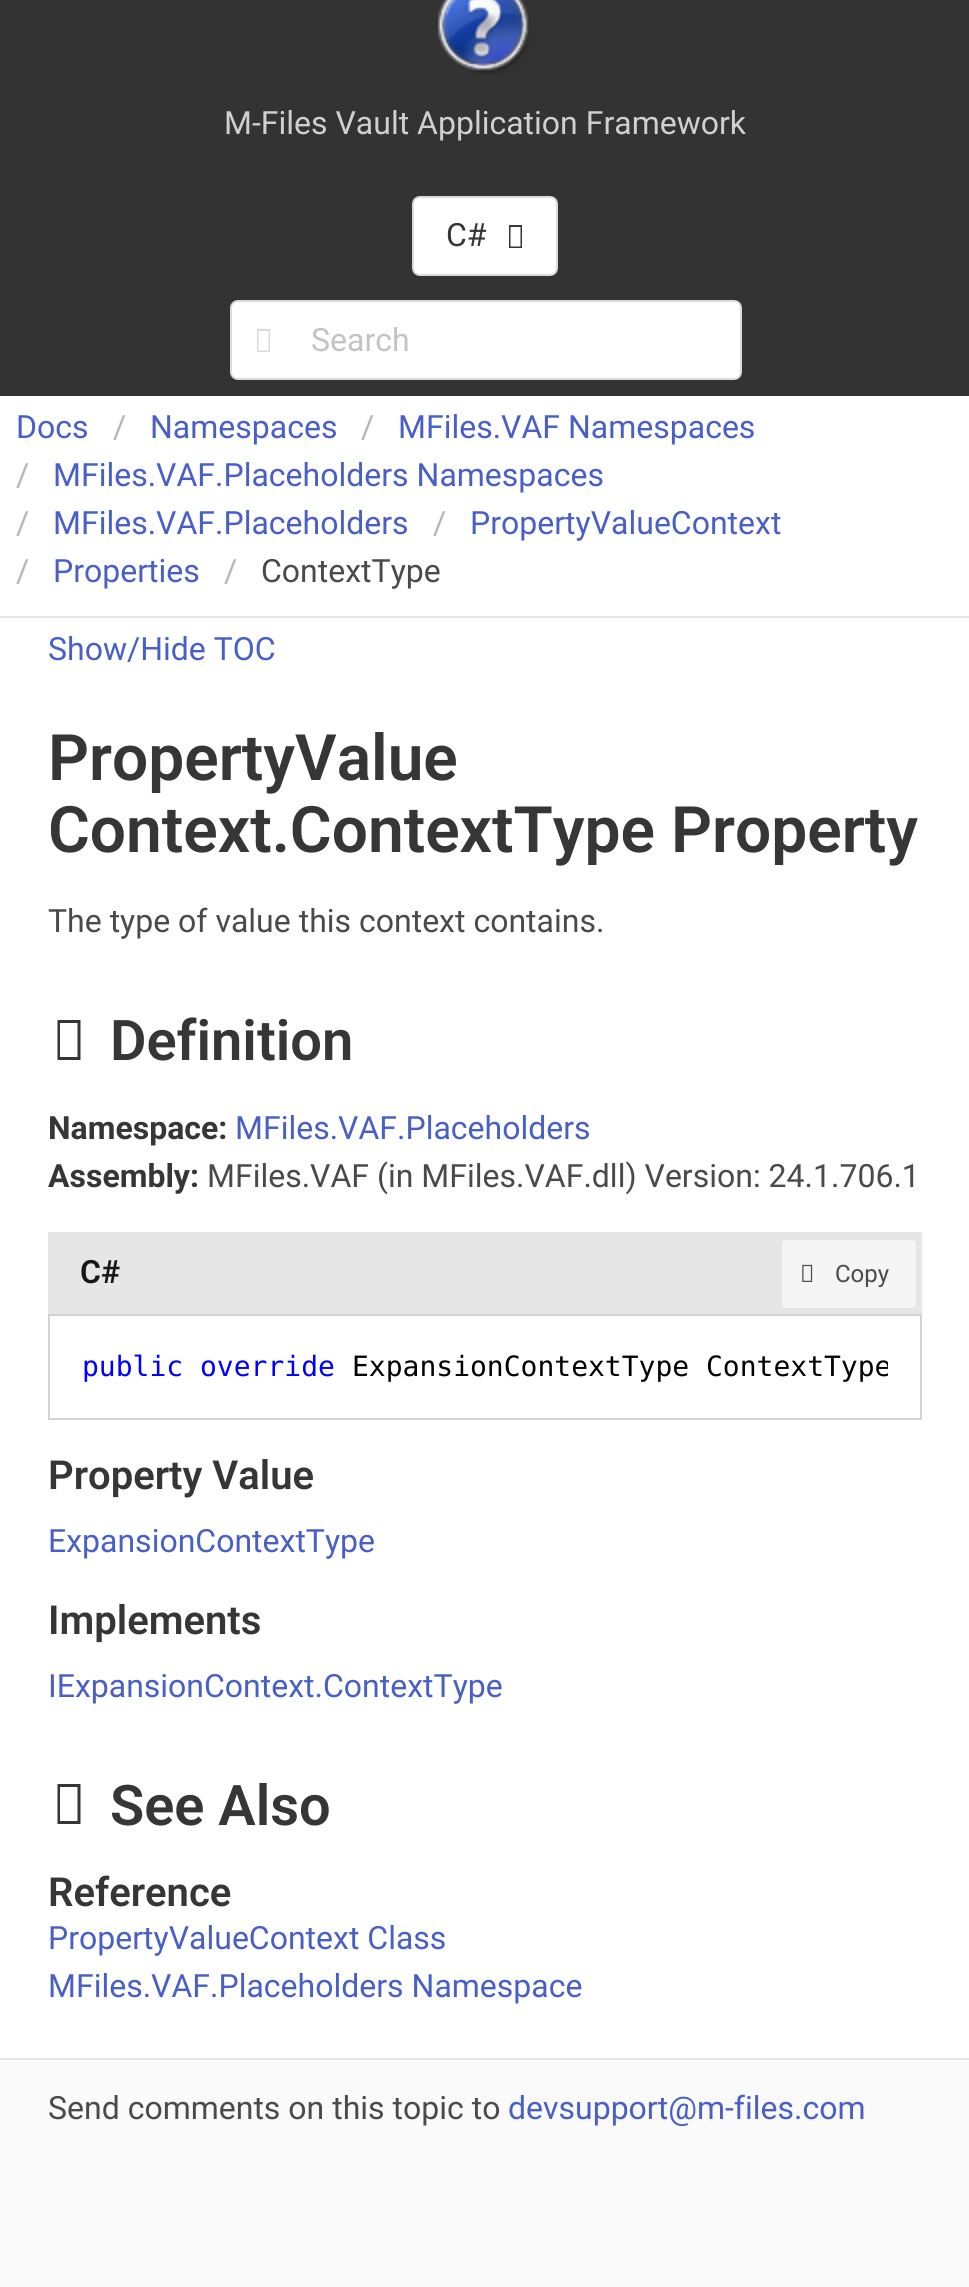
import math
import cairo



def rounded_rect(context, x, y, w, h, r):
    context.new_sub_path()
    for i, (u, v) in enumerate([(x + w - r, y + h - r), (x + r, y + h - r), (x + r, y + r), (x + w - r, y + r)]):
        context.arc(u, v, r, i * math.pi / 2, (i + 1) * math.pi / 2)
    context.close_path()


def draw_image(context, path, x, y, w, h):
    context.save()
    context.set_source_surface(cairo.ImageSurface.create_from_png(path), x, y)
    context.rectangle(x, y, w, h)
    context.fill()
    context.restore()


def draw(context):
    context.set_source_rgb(1, 1, 1)
    context.paint()
    context.set_source_rgb(51 / 255, 51 / 255, 51 / 255)
    context.rectangle(0, 0, 969, 396)
    context.fill()
    draw_image(context, "images/1.png", 438, 0, 92, 74)
    context.set_source_rgb(1, 1, 1)
    rounded_rect(context, 413, 197, 144, 78, 7)
    context.fill_preserve()
    context.set_source_rgb(219 / 255, 219 / 255, 219 / 255)
    context.stroke()
    context.set_source_rgb(54 / 255, 54 / 255, 54 / 255)
    context.new_path()
    context.move_to(509, 248)
    context.line_to(509, 225)
    context.line_to(522, 225)
    context.line_to(522, 248)
    context.close_path()
    context.move_to(510.5, 246.5)
    context.line_to(520.5, 246.5)
    context.line_to(520.5, 227)
    context.line_to(510.5, 227)
    context.close_path()
    context.fill()
    context.set_source_rgb(1, 1, 1)
    rounded_rect(context, 231, 301, 510, 78, 7)
    context.fill_preserve()
    context.set_source_rgb(219 / 255, 219 / 255, 219 / 255)
    context.stroke()
    context.new_path()
    context.move_to(257, 352)
    context.line_to(257, 329)
    context.line_to(270, 329)
    context.line_to(270, 352)
    context.close_path()
    context.move_to(258.5, 350.5)
    context.line_to(268.5, 350.5)
    context.line_to(268.5, 331)
    context.line_to(258.5, 331)
    context.close_path()
    context.fill()
    context.set_source_rgb(230 / 255, 230 / 255, 230 / 255)
    context.rectangle(0, 616, 969, 2)
    context.fill()
    context.set_source_rgb(54 / 255, 54 / 255, 54 / 255)
    context.new_path()
    context.move_to(57.5, 1060)
    context.line_to(57.5, 1020)
    context.line_to(80.5, 1020)
    context.line_to(80.5, 1060)
    context.close_path()
    context.move_to(60, 1057)
    context.line_to(77.5, 1057)
    context.line_to(77.5, 1023)
    context.line_to(60, 1023)
    context.close_path()
    context.fill()
    context.set_source_rgb(230 / 255, 230 / 255, 230 / 255)
    context.rectangle(48, 1232, 874, 82)
    context.fill()
    context.set_source_rgb(245 / 255, 245 / 255, 245 / 255)
    rounded_rect(context, 782, 1240, 134, 68, 4)
    context.fill()
    draw_image(context, "images/2.png", 802, 1264, 11, 18)
    context.rectangle(49, 1315, 872, 104)
    context.set_source_rgb(211 / 255, 211 / 255, 211 / 255)
    context.stroke()
    context.set_source_rgb(54 / 255, 54 / 255, 54 / 255)
    context.new_path()
    context.move_to(57.5, 1824)
    context.line_to(57.5, 1784)
    context.line_to(80.5, 1784)
    context.line_to(80.5, 1824)
    context.close_path()
    context.move_to(60, 1821)
    context.line_to(77.5, 1821)
    context.line_to(77.5, 1787)
    context.line_to(60, 1787)
    context.close_path()
    context.fill()
    context.set_source_rgb(250 / 255, 250 / 255, 250 / 255)
    context.rectangle(0, 2060, 969, 227)
    context.fill()
    context.set_source_rgb(230 / 255, 230 / 255, 230 / 255)
    context.rectangle(0, 2058, 969, 2)
    context.fill()
    context.select_font_face("Roboto")
    context.set_font_size(32)
    context.set_source_rgb(208 / 255, 208 / 255, 208 / 255)
    context.move_to(224, 134)
    context.show_text("M-Files Vault Application Framework")
    context.set_source_rgb(54 / 255, 54 / 255, 54 / 255)
    context.move_to(446, 246)
    context.show_text("C#")
    context.set_source_rgb(195 / 255, 195 / 255, 195 / 255)
    context.move_to(311, 351)
    context.show_text("Search")
    context.set_source_rgb(72 / 255, 95 / 255, 199 / 255)
    context.move_to(16, 438)
    context.show_text("Docs")
    context.set_source_rgb(181 / 255, 181 / 255, 181 / 255)
    context.move_to(113, 438)
    context.show_text("/")
    context.set_source_rgb(72 / 255, 95 / 255, 199 / 255)
    context.move_to(150, 438)
    context.show_text("Namespaces")
    context.set_source_rgb(181 / 255, 181 / 255, 181 / 255)
    context.move_to(361, 438)
    context.show_text("/")
    context.set_source_rgb(72 / 255, 95 / 255, 199 / 255)
    context.move_to(398, 438)
    context.show_text("MFiles.VAF Namespaces")
    context.set_source_rgb(181 / 255, 181 / 255, 181 / 255)
    context.move_to(16, 486)
    context.show_text("/")
    context.set_source_rgb(72 / 255, 95 / 255, 199 / 255)
    context.move_to(53, 486)
    context.show_text("MFiles.VAF.Placeholders Namespaces")
    context.set_source_rgb(181 / 255, 181 / 255, 181 / 255)
    context.move_to(16, 534)
    context.show_text("/")
    context.set_source_rgb(72 / 255, 95 / 255, 199 / 255)
    context.move_to(53, 534)
    context.show_text("MFiles.VAF.Placeholders")
    context.set_source_rgb(181 / 255, 181 / 255, 181 / 255)
    context.move_to(433, 534)
    context.show_text("/")
    context.set_source_rgb(72 / 255, 95 / 255, 199 / 255)
    context.move_to(470, 534)
    context.show_text("PropertyValueContext")
    context.set_source_rgb(181 / 255, 181 / 255, 181 / 255)
    context.move_to(16, 582)
    context.show_text("/")
    context.set_source_rgb(72 / 255, 95 / 255, 199 / 255)
    context.move_to(53, 582)
    context.show_text("Properties")
    context.set_source_rgb(181 / 255, 181 / 255, 181 / 255)
    context.move_to(224, 582)
    context.show_text("/")
    context.set_source_rgb(74 / 255, 74 / 255, 74 / 255)
    context.move_to(261, 582)
    context.show_text("ContextType")
    context.set_source_rgb(72 / 255, 95 / 255, 199 / 255)
    context.move_to(48, 660)
    context.show_text("Show/Hide TOC")
    context.select_font_face("Roboto SemiBold")
    context.set_font_size(64)
    context.set_source_rgb(54 / 255, 54 / 255, 54 / 255)
    context.move_to(48, 780)
    context.show_text("PropertyValue")
    context.move_to(48, 852)
    context.show_text("Context.ContextType Property")
    context.select_font_face("Roboto")
    context.set_font_size(32)
    context.set_source_rgb(74 / 255, 74 / 255, 74 / 255)
    context.move_to(48, 932)
    context.show_text("The type of value this context contains.")
    context.select_font_face("Roboto SemiBold")
    context.set_font_size(56)
    context.set_source_rgb(54 / 255, 54 / 255, 54 / 255)
    context.move_to(110, 1060)
    context.show_text("Definition")
    context.select_font_face("Roboto", cairo.FontSlant.NORMAL, cairo.FontWeight.BOLD)
    context.set_font_size(32)
    context.move_to(48, 1139)
    context.show_text("Namespace:")
    context.select_font_face("Roboto")
    context.set_source_rgb(72 / 255, 95 / 255, 199 / 255)
    context.move_to(235, 1139)
    context.show_text("MFiles.VAF.Placeholders")
    context.select_font_face("Roboto", cairo.FontSlant.NORMAL, cairo.FontWeight.BOLD)
    context.set_source_rgb(54 / 255, 54 / 255, 54 / 255)
    context.move_to(48, 1187)
    context.show_text("Assembly:")
    context.select_font_face("Roboto")
    context.set_source_rgb(74 / 255, 74 / 255, 74 / 255)
    context.move_to(207, 1187)
    context.show_text("MFiles.VAF (in MFiles.VAF.dll) Version: 24.1.706.1")
    context.select_font_face("Roboto SemiBold")
    context.set_source_rgb(23 / 255, 23 / 255, 23 / 255)
    context.move_to(80, 1283)
    context.show_text("C#")
    context.select_font_face("Roboto")
    context.set_font_size(24)
    context.set_source_rgb(74 / 255, 74 / 255, 74 / 255)
    context.move_to(835, 1282)
    context.show_text("Copy")
    context.select_font_face("DejaVu Sans Mono")
    context.set_font_size(28)
    context.set_source_rgb(0, 0, 1)
    context.move_to(82, 1376)
    context.show_text("public override")
    context.save()
    context.rectangle(82, 1348, 806, 38)
    context.clip()
    context.set_source_rgb(0, 0, 0)
    context.move_to(352, 1376)
    context.show_text("ExpansionContextType ContextType")
    context.restore()
    context.select_font_face("Roboto SemiBold")
    context.set_font_size(40)
    context.set_source_rgb(54 / 255, 54 / 255, 54 / 255)
    context.move_to(48, 1489)
    context.show_text("Property Value")
    context.select_font_face("Roboto")
    context.set_font_size(32)
    context.set_source_rgb(72 / 255, 95 / 255, 199 / 255)
    context.move_to(48, 1552)
    context.show_text("ExpansionContextType")
    context.select_font_face("Roboto SemiBold")
    context.set_font_size(40)
    context.set_source_rgb(54 / 255, 54 / 255, 54 / 255)
    context.move_to(48, 1634)
    context.show_text("Implements")
    context.select_font_face("Roboto")
    context.set_font_size(32)
    context.set_source_rgb(72 / 255, 95 / 255, 199 / 255)
    context.move_to(48, 1697)
    context.show_text("IExpansionContext.ContextType")
    context.select_font_face("Roboto SemiBold")
    context.set_font_size(56)
    context.set_source_rgb(54 / 255, 54 / 255, 54 / 255)
    context.move_to(110, 1825)
    context.show_text("See Also")
    context.set_font_size(40)
    context.move_to(48, 1906)
    context.show_text("Reference")
    context.select_font_face("Roboto")
    context.set_font_size(32)
    context.set_source_rgb(72 / 255, 95 / 255, 199 / 255)
    context.move_to(48, 1949)
    context.show_text("PropertyValueContext Class")
    context.move_to(48, 1997)
    context.show_text("MFiles.VAF.Placeholders Namespace")
    context.set_source_rgb(74 / 255, 74 / 255, 74 / 255)
    context.move_to(48, 2119)
    context.show_text("Send comments on this topic to")
    context.set_source_rgb(72 / 255, 95 / 255, 199 / 255)
    context.move_to(508, 2119)
    context.show_text("devsupport@m-files.com")


surface = cairo.ImageSurface(cairo.Format.RGB24, 969, 2287)
context = cairo.Context(surface)
options = cairo.FontOptions()
options.set_hint_metrics(cairo.HintMetrics.OFF)
options.set_hint_style(cairo.HintStyle.NONE)
context.set_font_options(options)
context.set_miter_limit(4)
draw(context)
surface.write_to_png("out.png")
